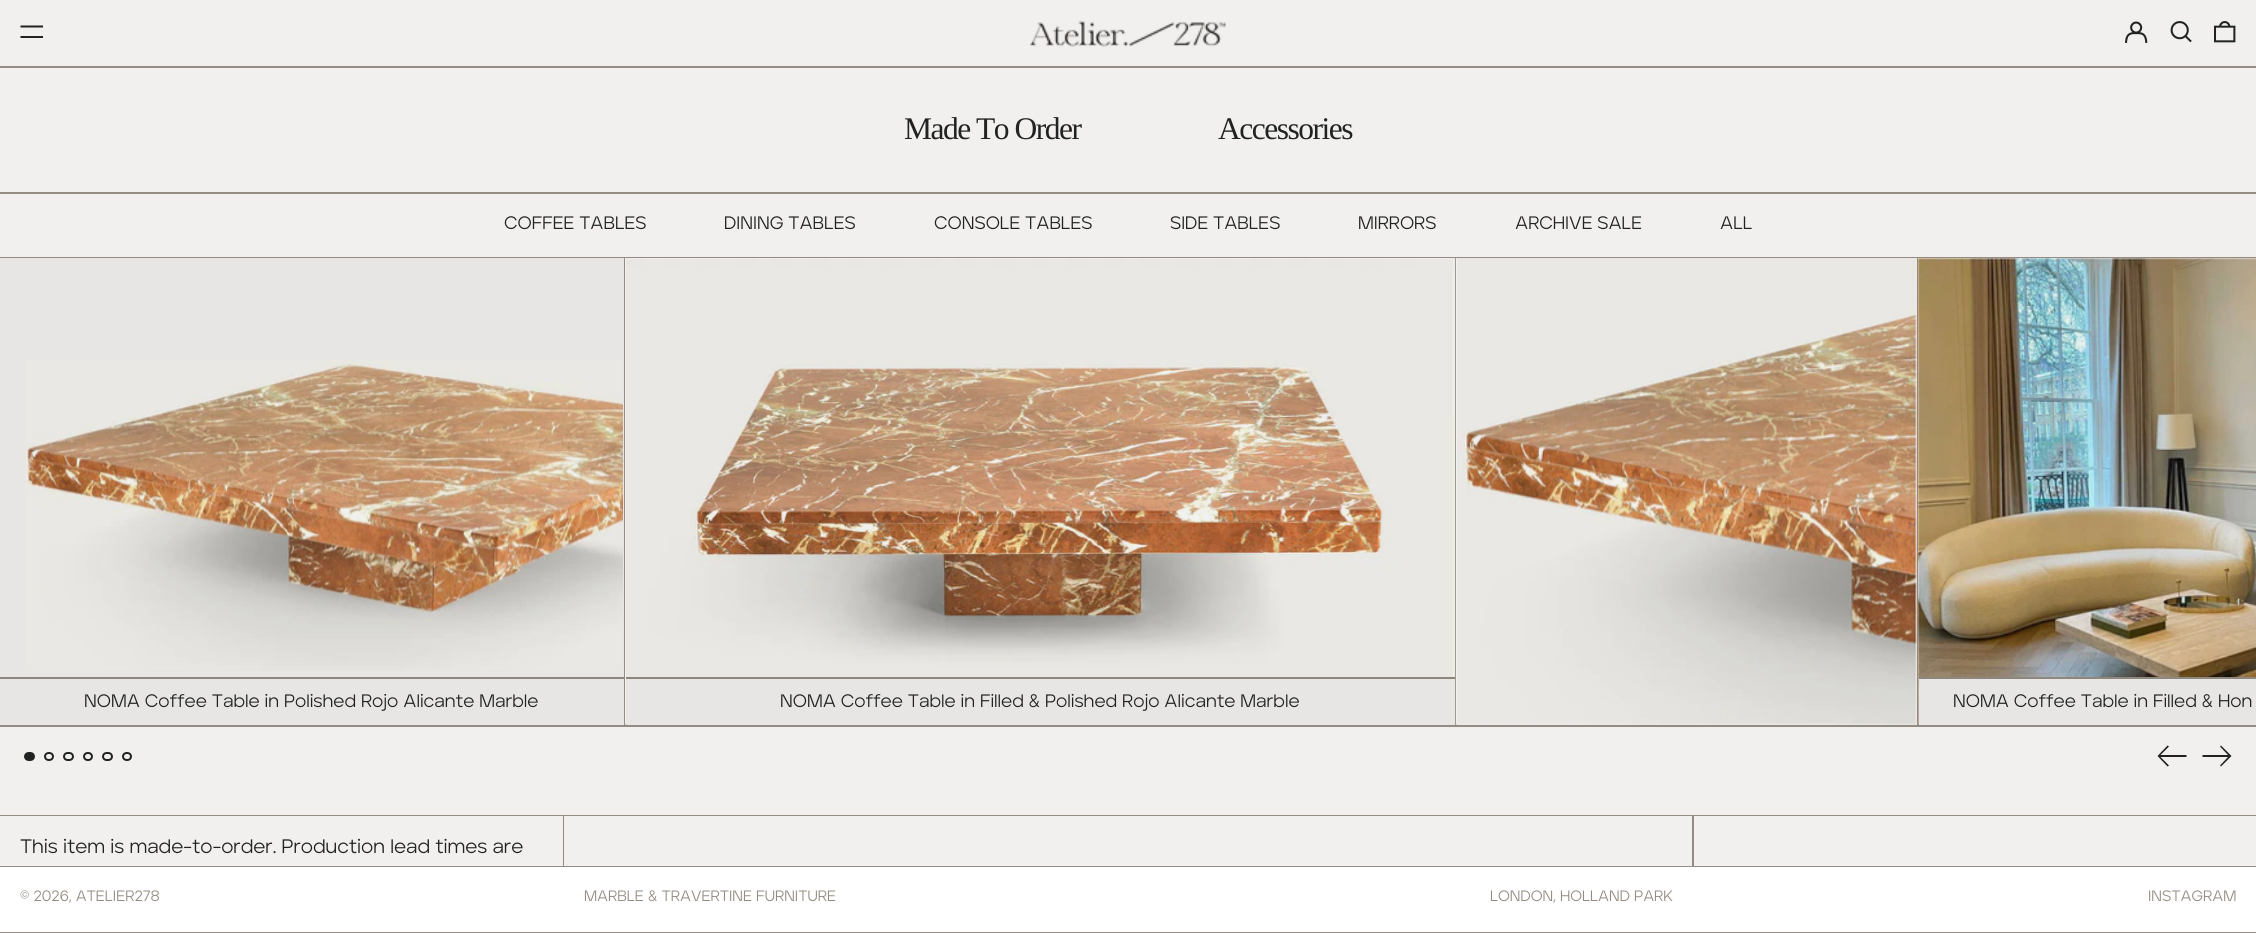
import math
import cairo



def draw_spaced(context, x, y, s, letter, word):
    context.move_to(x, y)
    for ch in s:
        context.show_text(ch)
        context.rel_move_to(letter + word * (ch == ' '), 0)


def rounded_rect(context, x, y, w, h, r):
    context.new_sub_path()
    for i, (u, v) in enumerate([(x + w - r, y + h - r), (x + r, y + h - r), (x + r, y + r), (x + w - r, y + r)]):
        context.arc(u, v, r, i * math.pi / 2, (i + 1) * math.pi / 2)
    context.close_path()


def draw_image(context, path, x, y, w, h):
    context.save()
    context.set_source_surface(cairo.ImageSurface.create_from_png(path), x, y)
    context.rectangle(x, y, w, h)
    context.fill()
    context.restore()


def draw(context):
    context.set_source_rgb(241 / 255, 240 / 255, 238 / 255)
    context.paint()
    context.set_source_rgb(33 / 255, 35 / 255, 34 / 255)
    context.set_fill_rule(cairo.FillRule.EVEN_ODD)
    context.new_path()
    context.move_to(43, 36)
    context.line_to(43, 38)
    context.line_to(20.5, 38)
    context.line_to(20.5, 36)
    context.close_path()
    context.move_to(43, 25.5)
    context.line_to(43, 27.5)
    context.line_to(20.5, 27.5)
    context.line_to(20.5, 25.5)
    context.close_path()
    context.fill()
    draw_image(context, "images/1.png", 1030, 20, 196, 27)
    draw_image(context, "images/2.png", 2125, 21, 23, 22)
    draw_image(context, "images/3.png", 2170, 21, 22, 22)
    draw_image(context, "images/4.png", 2214, 21, 22, 22)
    context.set_source_rgb(148 / 255, 140 / 255, 130 / 255)
    context.rectangle(0, 66, 2256, 2)
    context.fill()
    context.rectangle(0, 192, 2256, 2)
    context.fill()
    context.rectangle(0, 257, 2256, 1)
    context.fill()
    context.set_source_rgb(231 / 255, 230 / 255, 228 / 255)
    context.rectangle(1457, 258, 460, 467)
    context.fill()
    context.rectangle(1454, 258, 1, 419)
    context.fill()
    context.rectangle(0, 258, 624, 467)
    context.fill()
    context.set_source_rgb(148 / 255, 140 / 255, 130 / 255)
    context.rectangle(0, 725, 2256, 2)
    context.fill()
    context.rectangle(624, 258, 2, 467)
    context.fill()
    draw_image(context, "images/5.png", 25, 360, 598, 311)
    context.set_source_rgb(142 / 255, 135 / 255, 125 / 255)
    context.rectangle(0, 677, 624, 2)
    context.fill()
    context.set_source_rgb(148 / 255, 140 / 255, 130 / 255)
    context.rectangle(1455, 258, 2, 467)
    context.fill()
    draw_image(context, "images/6.png", 625, 258, 830, 467)
    context.set_source_rgb(231 / 255, 230 / 255, 228 / 255)
    context.rectangle(626, 679, 829, 46)
    context.fill()
    context.set_source_rgb(142 / 255, 135 / 255, 125 / 255)
    context.rectangle(626, 677, 829, 2)
    context.fill()
    context.set_source_rgb(148 / 255, 140 / 255, 130 / 255)
    context.rectangle(1917, 258, 2, 467)
    context.fill()
    draw_image(context, "images/7.png", 1455, 258, 462, 467)
    draw_image(context, "images/8.png", 1918, 258, 338, 466)
    context.set_source_rgb(231 / 255, 230 / 255, 228 / 255)
    context.rectangle(1919, 679, 337, 46)
    context.fill()
    context.set_source_rgb(142 / 255, 135 / 255, 125 / 255)
    context.rectangle(1919, 677, 337, 2)
    context.fill()
    context.set_source_rgb(33 / 255, 35 / 255, 34 / 255)
    rounded_rect(context, 25, 753, 9, 7, 3.5)
    context.fill_preserve()
    context.stroke()
    rounded_rect(context, 45, 753, 8, 7, 3.5)
    context.stroke()
    rounded_rect(context, 64, 753, 9, 7, 3.5)
    context.stroke()
    rounded_rect(context, 84, 753, 8, 7, 3.5)
    context.stroke()
    rounded_rect(context, 103, 753, 9, 7, 3.5)
    context.stroke()
    rounded_rect(context, 123, 753, 8, 7, 3.5)
    context.stroke()
    context.set_fill_rule(cairo.FillRule.WINDING)
    context.new_path()
    context.move_to(2167.5, 745.5)
    context.line_to(2157.5, 756)
    context.line_to(2167.5, 766.5)
    context.line_to(2169, 765.5)
    context.line_to(2160.5, 757)
    context.line_to(2186.5, 757)
    context.line_to(2186.5, 755)
    context.line_to(2160.5, 755)
    context.line_to(2169, 746.5)
    context.close_path()
    context.fill()
    context.new_path()
    context.move_to(2221, 745.5)
    context.line_to(2231.5, 756)
    context.line_to(2221, 766.5)
    context.line_to(2220, 765.5)
    context.line_to(2228, 757)
    context.line_to(2202.5, 757)
    context.line_to(2202.5, 755)
    context.line_to(2228, 755)
    context.line_to(2220, 746.5)
    context.close_path()
    context.fill()
    context.set_source_rgb(148 / 255, 140 / 255, 130 / 255)
    context.rectangle(563, 817, 1131, 49)
    context.fill()
    context.rectangle(0, 815, 2256, 2)
    context.fill()
    context.set_source_rgb(241 / 255, 240 / 255, 238 / 255)
    context.rectangle(564, 816, 1128, 50)
    context.fill()
    context.rectangle(1694, 816, 562, 1)
    context.fill()
    context.rectangle(0, 816, 563, 1)
    context.fill()
    context.set_source_rgb(148 / 255, 140 / 255, 130 / 255)
    context.rectangle(0, 866, 2256, 1)
    context.fill()
    context.set_source_rgb(1, 1, 1)
    context.rectangle(0, 867, 564, 65)
    context.fill()
    context.rectangle(564, 867, 1692, 65)
    context.fill()
    context.set_source_rgb(148 / 255, 140 / 255, 130 / 255)
    context.rectangle(0, 932, 2256, 1)
    context.fill()
    context.select_font_face("Liberation Serif")
    context.set_font_size(31.5)
    context.set_source_rgb(33 / 255, 35 / 255, 34 / 255)
    draw_spaced(context, 904, 139, "Made To Order", -1.5, 0)
    draw_spaced(context, 1218, 139, "Accessories", -1.5, 0)
    context.select_font_face("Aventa")
    context.set_font_size(18)
    context.move_to(504, 229)
    context.show_text("COFFEE TABLES")
    context.move_to(724, 229)
    context.show_text("DINING TABLES")
    context.move_to(934, 229)
    context.show_text("CONSOLE TABLES")
    context.move_to(1170, 229)
    context.show_text("SIDE TABLES")
    context.move_to(1358, 229)
    context.show_text("MIRRORS")
    context.move_to(1515, 229)
    context.show_text("ARCHIVE SALE")
    context.move_to(1720, 229)
    context.show_text("ALL")
    context.move_to(84, 707)
    context.show_text("NOMA Coffee Table in Polished Rojo Alicante Marble")
    context.move_to(780, 707)
    context.show_text("NOMA Coffee Table in Filled & Polished Rojo Alicante Marble")
    context.move_to(1953, 707)
    context.show_text("NOMA Coffee Table in Filled & Hon")
    context.set_font_size(19.5)
    context.move_to(20, 853)
    context.show_text("This item is made-to-order. Production lead times are")
    context.set_font_size(15)
    context.set_source_rgb(148 / 255, 140 / 255, 130 / 255)
    context.move_to(20, 901)
    context.show_text("© 2026, ATELIER278")
    context.move_to(584, 901)
    context.show_text("MARBLE & TRAVERTINE FURNITURE")
    context.move_to(1490, 901)
    context.show_text("LONDON, HOLLAND PARK")
    context.move_to(2148, 901)
    context.show_text("INSTAGRAM")


surface = cairo.ImageSurface(cairo.Format.RGB24, 2256, 933)
context = cairo.Context(surface)
options = cairo.FontOptions()
options.set_hint_metrics(cairo.HintMetrics.OFF)
options.set_hint_style(cairo.HintStyle.NONE)
context.set_font_options(options)
context.set_miter_limit(4)
draw(context)
surface.write_to_png("out.png")
